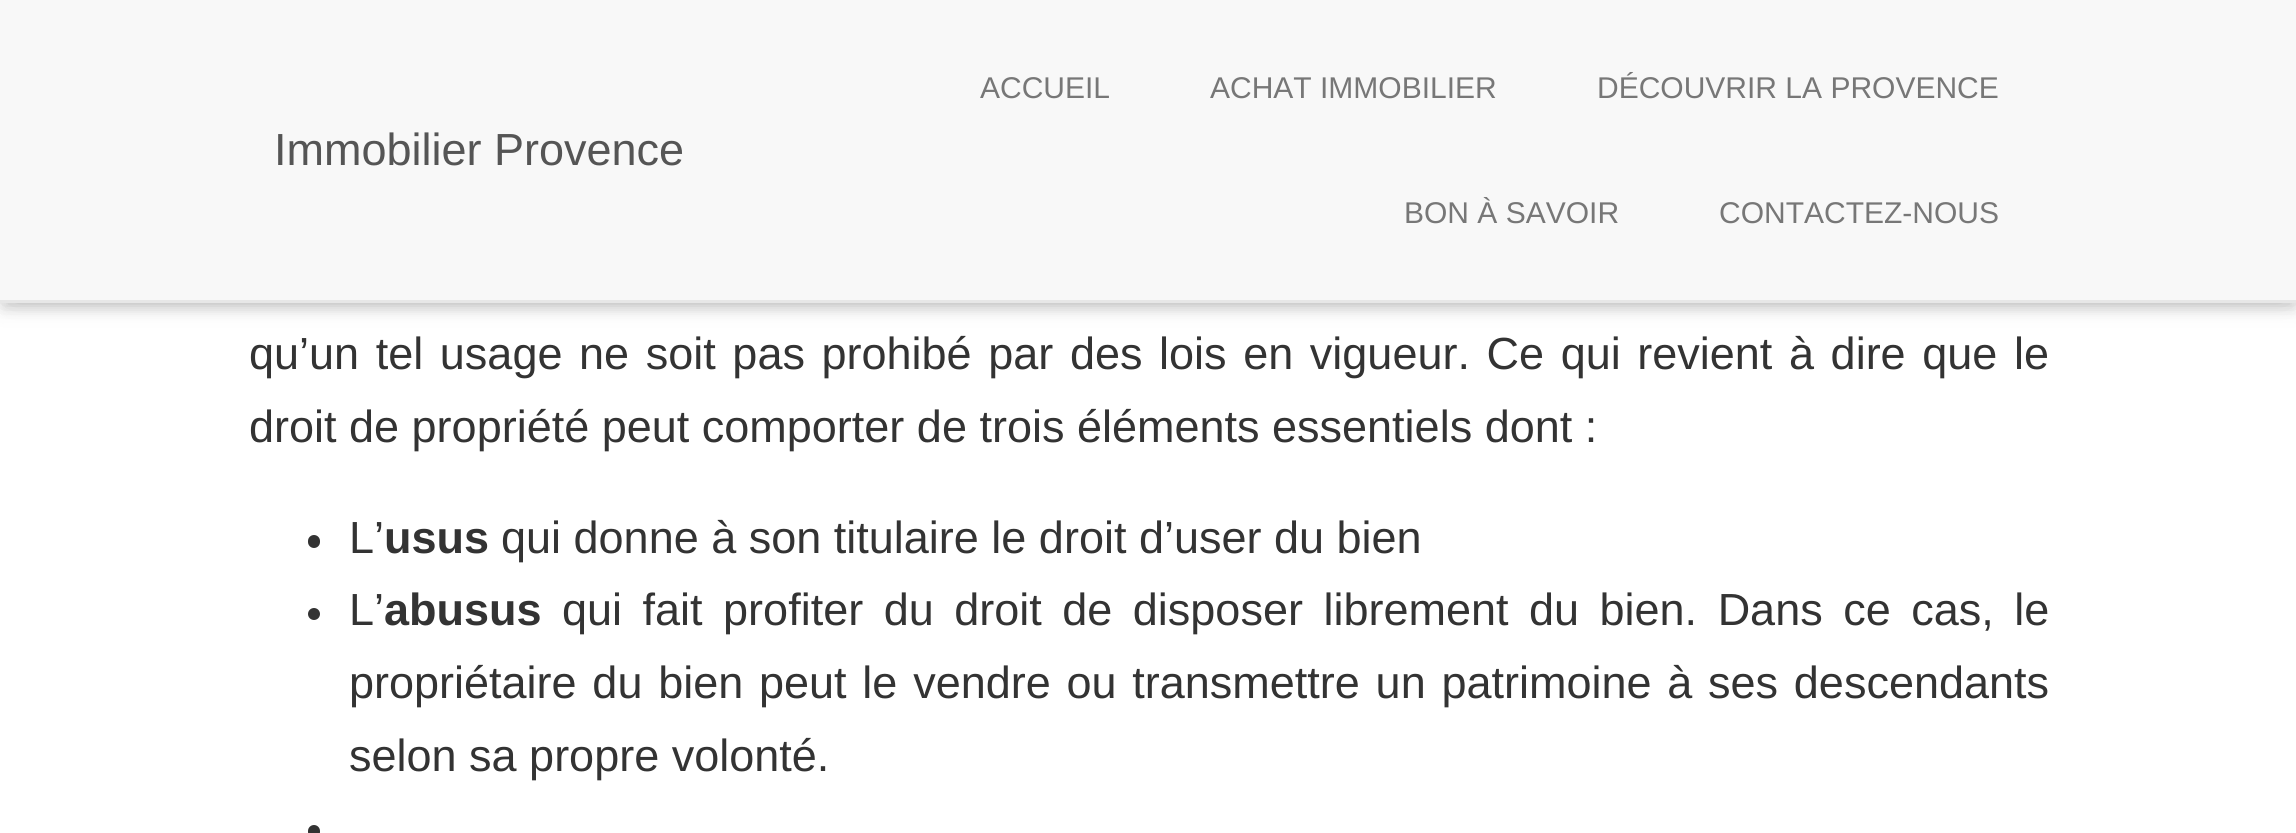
import math
import cairo



def draw_spaced(context, x, y, s, letter, word):
    context.move_to(x, y)
    for ch in s:
        context.show_text(ch)
        context.rel_move_to(letter + word * (ch == ' '), 0)


def rounded_rect(context, x, y, w, h, r):
    context.new_sub_path()
    for i, (u, v) in enumerate([(x + w - r, y + h - r), (x + r, y + h - r), (x + r, y + r), (x + w - r, y + r)]):
        context.arc(u, v, r, i * math.pi / 2, (i + 1) * math.pi / 2)
    context.close_path()


def draw_shadow(context, x, y, w, h, r, blur, alpha):
    context.push_group_with_content(cairo.Content.ALPHA)
    context.set_operator(cairo.Operator.SOURCE)
    for i in range(15, -16, -2):
        e = blur * i / 6
        if min(w, h) + 2 * e > 0:
            context.set_source_rgba(0, 0, 0, alpha * math.erfc((i - 1) / 8.5) / 2)
            rounded_rect(context, x - e, y - e, w + 2 * e, h + 2 * e, max(0, min(r + e + blur * .6, min(w, h) / 2 + e)))
            context.fill()
    context.mask(context.pop_group())


def draw(context):
    context.set_source_rgb(1, 1, 1)
    context.paint()
    context.set_source_rgb(0, 0, 0)
    draw_shadow(context, 5, 15, 2288, 293, 0, 6, 0.1)
    draw_shadow(context, 0, 3, 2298, 302, 0, 12.5, 0.12)
    draw_shadow(context, 15, 18, 2268, 272, 0, 12.5, 0.42)
    context.set_source_rgb(248 / 255, 248 / 255, 248 / 255)
    context.rectangle(0, 0, 2296, 300)
    context.fill()
    context.set_source_rgb(231 / 255, 231 / 255, 231 / 255)
    context.rectangle(0, 300, 2296, 3)
    context.fill()
    context.set_source_rgb(51 / 255, 51 / 255, 51 / 255)
    rounded_rect(context, 308, 535, 12, 13, 6)
    context.fill()
    context.arc(314, 614, 6, 0, 2 * math.pi)
    context.fill()
    rounded_rect(context, 308, 825, 12, 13, 6)
    context.fill()
    context.select_font_face("Liberation Sans")
    context.set_font_size(45)
    context.set_source_rgb(85 / 255, 85 / 255, 85 / 255)
    context.move_to(274, 165)
    context.show_text("Immobilier Provence")
    context.set_font_size(30)
    context.set_source_rgb(119 / 255, 119 / 255, 119 / 255)
    context.move_to(980, 98)
    context.show_text("ACCUEIL")
    context.move_to(1210, 98)
    context.show_text("ACHAT IMMOBILIER")
    context.move_to(1597, 98)
    context.show_text("DÉCOUVRIR LA PROVENCE")
    context.move_to(1404, 223)
    context.show_text("BON À SAVOIR")
    context.move_to(1719, 223)
    context.show_text("CONTACTEZ-NOUS")
    context.set_font_size(45)
    context.set_source_rgb(51 / 255, 51 / 255, 51 / 255)
    draw_spaced(context, 249, 369, "qu’un tel usage ne soit pas prohibé par des lois en vigueur. Ce qui revient à dire que le", 0, 4.1)
    context.move_to(249, 442)
    context.show_text("droit de propriété peut comporter de trois éléments essentiels dont :")
    context.move_to(349, 553)
    context.show_text("L’")
    context.select_font_face("Liberation Sans", cairo.FontSlant.NORMAL, cairo.FontWeight.BOLD)
    context.move_to(384, 553)
    context.show_text("usus")
    context.select_font_face("Liberation Sans")
    context.move_to(501, 553)
    context.show_text("qui donne à son titulaire le droit d’user du bien")
    context.move_to(349, 625)
    context.show_text("L’")
    context.select_font_face("Liberation Sans", cairo.FontSlant.NORMAL, cairo.FontWeight.BOLD)
    context.move_to(384, 625)
    context.show_text("abusus")
    context.select_font_face("Liberation Sans")
    draw_spaced(context, 562, 625, "qui fait profiter du droit de disposer librement du bien. Dans ce cas, le", 0, 8)
    draw_spaced(context, 349, 698, "propriétaire du bien peut le vendre ou transmettre un patrimoine à ses descendants", 0, 3.25)
    context.move_to(349, 771)
    context.show_text("selon sa propre volonté.")


surface = cairo.ImageSurface(cairo.Format.RGB24, 2296, 833)
context = cairo.Context(surface)
options = cairo.FontOptions()
options.set_hint_metrics(cairo.HintMetrics.OFF)
options.set_hint_style(cairo.HintStyle.NONE)
context.set_font_options(options)
context.set_miter_limit(4)
draw(context)
surface.write_to_png("out.png")
